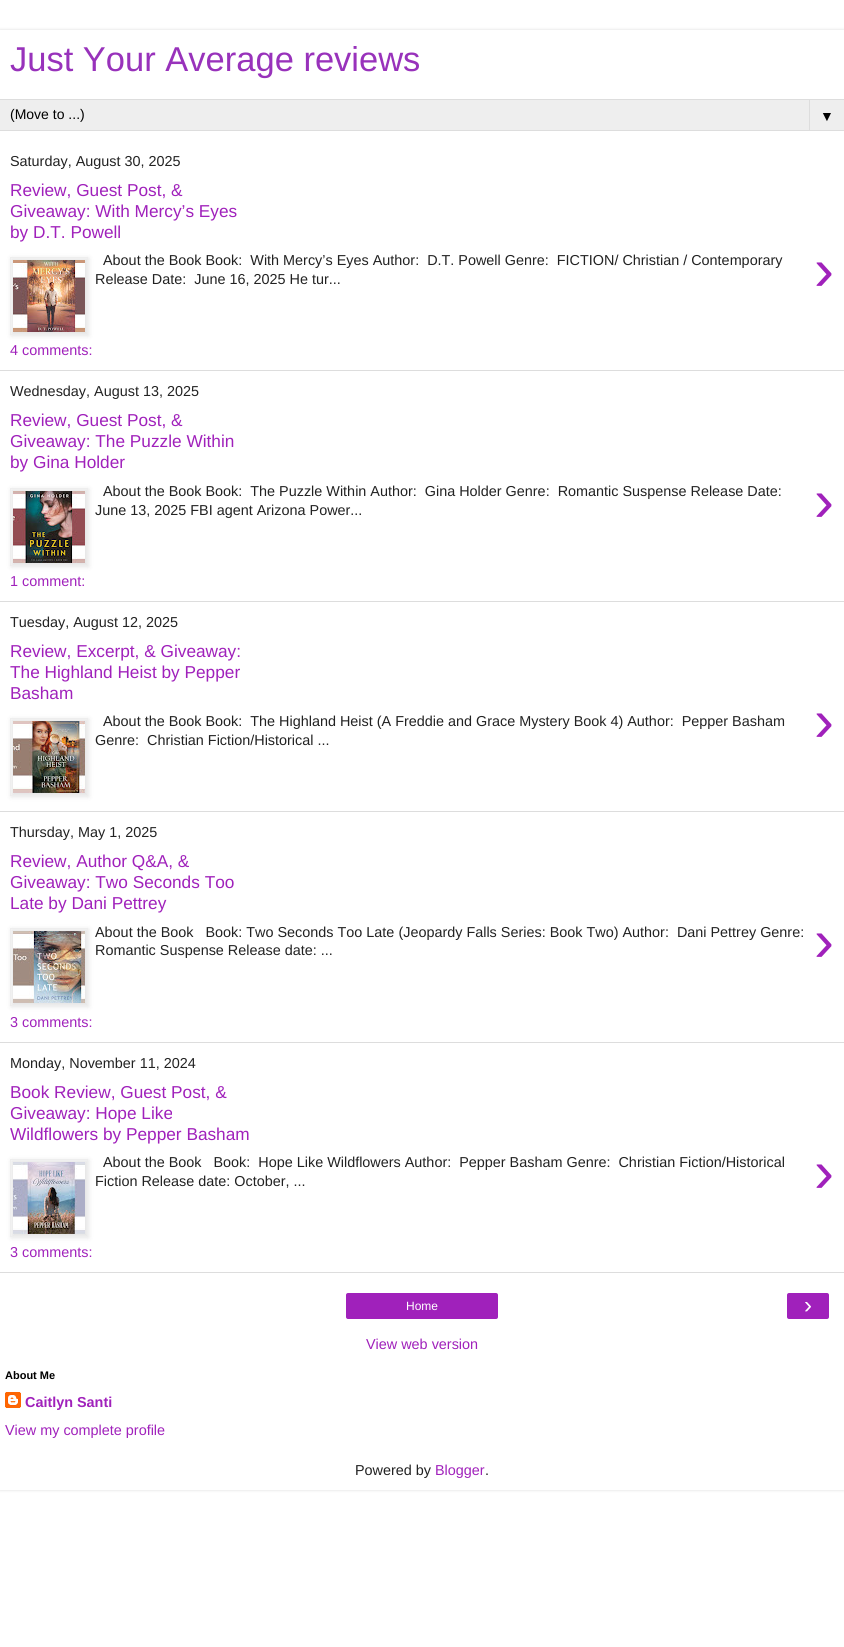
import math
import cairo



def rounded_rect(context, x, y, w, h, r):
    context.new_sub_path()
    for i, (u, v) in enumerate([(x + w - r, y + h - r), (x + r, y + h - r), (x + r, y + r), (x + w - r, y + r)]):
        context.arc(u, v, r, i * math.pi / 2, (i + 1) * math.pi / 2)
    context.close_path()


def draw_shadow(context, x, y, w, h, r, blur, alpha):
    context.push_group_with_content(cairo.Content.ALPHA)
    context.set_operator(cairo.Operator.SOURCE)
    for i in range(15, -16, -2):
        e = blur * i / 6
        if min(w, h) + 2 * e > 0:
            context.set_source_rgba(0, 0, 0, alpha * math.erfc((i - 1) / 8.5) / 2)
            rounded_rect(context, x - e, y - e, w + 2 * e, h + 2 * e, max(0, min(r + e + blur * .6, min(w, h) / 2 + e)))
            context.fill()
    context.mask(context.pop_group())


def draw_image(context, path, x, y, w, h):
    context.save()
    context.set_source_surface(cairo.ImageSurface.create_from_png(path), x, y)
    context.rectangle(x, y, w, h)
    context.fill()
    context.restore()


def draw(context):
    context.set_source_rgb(1, 1, 1)
    context.paint()
    context.save()
    context.set_fill_rule(cairo.FillRule.EVEN_ODD)
    context.new_path()
    context.move_to(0, 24)
    context.line_to(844, 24)
    context.line_to(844, 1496)
    context.line_to(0, 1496)
    context.close_path()
    context.move_to(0, 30)
    context.line_to(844, 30)
    context.line_to(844, 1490)
    context.line_to(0, 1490)
    context.close_path()
    context.clip()
    context.set_source_rgb(0, 0, 0)
    draw_shadow(context, 0, 30, 844, 1460, 0, 1.5, 0.15)
    context.restore()
    context.set_source_rgb(238 / 255, 238 / 255, 238 / 255)
    context.rectangle(0, 100, 844, 30)
    context.fill()
    context.set_source_rgb(221 / 255, 221 / 255, 221 / 255)
    context.rectangle(0, 99, 844, 1)
    context.fill()
    context.rectangle(0, 130, 844, 1)
    context.fill()
    context.rectangle(809, 99, 1, 32)
    context.fill()
    context.rectangle(0, 370, 844, 1)
    context.fill()
    context.set_source_rgb(0, 0, 0)
    draw_shadow(context, 11, 258, 78, 78, 0, 2.5, 0.1)
    context.rectangle(10.5, 257.5, 77, 77)
    context.set_source_rgb(238 / 255, 238 / 255, 238 / 255)
    context.set_line_width(1)
    context.stroke()
    draw_image(context, "images/1.png", 13, 260, 72, 72)
    context.set_source_rgb(221 / 255, 221 / 255, 221 / 255)
    context.rectangle(0, 601, 844, 1)
    context.fill()
    context.set_source_rgb(0, 0, 0)
    draw_shadow(context, 11, 489, 78, 78, 0, 2.5, 0.1)
    context.rectangle(10.5, 488.5, 77, 77)
    context.set_source_rgb(238 / 255, 238 / 255, 238 / 255)
    context.stroke()
    draw_image(context, "images/2.png", 13, 491, 72, 72)
    context.set_source_rgb(221 / 255, 221 / 255, 221 / 255)
    context.rectangle(0, 811, 844, 1)
    context.fill()
    context.set_source_rgb(0, 0, 0)
    draw_shadow(context, 11, 719, 78, 78, 0, 2.5, 0.1)
    context.rectangle(10.5, 718.5, 77, 77)
    context.set_source_rgb(238 / 255, 238 / 255, 238 / 255)
    context.stroke()
    draw_image(context, "images/3.png", 13, 721, 72, 72)
    context.set_source_rgb(221 / 255, 221 / 255, 221 / 255)
    context.rectangle(0, 1042, 844, 1)
    context.fill()
    context.set_source_rgb(0, 0, 0)
    draw_shadow(context, 11, 929, 78, 78, 0, 2.5, 0.1)
    context.rectangle(10.5, 928.5, 77, 77)
    context.set_source_rgb(238 / 255, 238 / 255, 238 / 255)
    context.stroke()
    draw_image(context, "images/4.png", 13, 931, 72, 72)
    context.set_source_rgb(221 / 255, 221 / 255, 221 / 255)
    context.rectangle(0, 1272, 844, 1)
    context.fill()
    context.set_source_rgb(0, 0, 0)
    draw_shadow(context, 11, 1160, 78, 78, 0, 2.5, 0.1)
    context.rectangle(10.5, 1159.5, 77, 77)
    context.set_source_rgb(238 / 255, 238 / 255, 238 / 255)
    context.stroke()
    draw_image(context, "images/5.png", 13, 1162, 72, 72)
    context.set_source_rgb(160 / 255, 33 / 255, 187 / 255)
    rounded_rect(context, 346, 1293, 152, 26, 2)
    context.fill()
    rounded_rect(context, 787, 1293, 42, 26, 2)
    context.fill()
    draw_image(context, "images/6.png", 5, 1392, 16, 16)
    context.select_font_face("Liberation Sans")
    context.set_font_size(34.5)
    context.set_source_rgb(152 / 255, 50 / 255, 187 / 255)
    context.move_to(10, 71)
    context.show_text("Just Your Average reviews")
    context.set_font_size(14)
    context.set_source_rgb(0, 0, 0)
    context.move_to(10, 119)
    context.show_text("(Move to ...)")
    context.move_to(820, 121)
    context.show_text("▼")
    context.set_font_size(14.4)
    context.set_source_rgb(34 / 255, 34 / 255, 34 / 255)
    context.move_to(10, 166)
    context.show_text("Saturday, August 30, 2025")
    context.set_font_size(17.25)
    context.set_source_rgb(160 / 255, 33 / 255, 187 / 255)
    context.move_to(10, 196)
    context.show_text("Review, Guest Post, &")
    context.move_to(10, 217)
    context.show_text("Giveaway: With Mercy’s Eyes")
    context.move_to(10, 238)
    context.show_text("by D.T. Powell")
    context.set_font_size(14.4)
    context.set_source_rgb(34 / 255, 34 / 255, 34 / 255)
    context.move_to(103, 265)
    context.show_text("About the Book Book:  With Mercy’s Eyes Author:  D.T. Powell Genre:  FICTION/ Christian / Contemporary")
    context.move_to(95, 284)
    context.show_text("Release Date:  June 16, 2025 He tur...")
    context.set_font_size(60)
    context.set_source_rgb(160 / 255, 33 / 255, 187 / 255)
    context.move_to(814, 290)
    context.show_text("›")
    context.set_font_size(14.4)
    context.move_to(10, 355)
    context.show_text("4 comments:")
    context.set_source_rgb(34 / 255, 34 / 255, 34 / 255)
    context.move_to(10, 396)
    context.show_text("Wednesday, August 13, 2025")
    context.set_font_size(17.25)
    context.set_source_rgb(160 / 255, 33 / 255, 187 / 255)
    context.move_to(10, 426)
    context.show_text("Review, Guest Post, &")
    context.move_to(10, 447)
    context.show_text("Giveaway: The Puzzle Within")
    context.move_to(10, 468)
    context.show_text("by Gina Holder")
    context.set_font_size(14.4)
    context.set_source_rgb(34 / 255, 34 / 255, 34 / 255)
    context.move_to(103, 496)
    context.show_text("About the Book Book:  The Puzzle Within Author:  Gina Holder Genre:  Romantic Suspense Release Date:")
    context.move_to(95, 515)
    context.show_text("June 13, 2025 FBI agent Arizona Power...")
    context.set_font_size(60)
    context.set_source_rgb(160 / 255, 33 / 255, 187 / 255)
    context.move_to(814, 521)
    context.show_text("›")
    context.set_font_size(14.4)
    context.move_to(10, 586)
    context.show_text("1 comment:")
    context.set_source_rgb(34 / 255, 34 / 255, 34 / 255)
    context.move_to(10, 627)
    context.show_text("Tuesday, August 12, 2025")
    context.set_font_size(17.25)
    context.set_source_rgb(160 / 255, 33 / 255, 187 / 255)
    context.move_to(10, 657)
    context.show_text("Review, Excerpt, & Giveaway:")
    context.move_to(10, 678)
    context.show_text("The Highland Heist by Pepper")
    context.move_to(10, 699)
    context.show_text("Basham")
    context.set_font_size(14.4)
    context.set_source_rgb(34 / 255, 34 / 255, 34 / 255)
    context.move_to(103, 726)
    context.show_text("About the Book Book:  The Highland Heist (A Freddie and Grace Mystery Book 4) Author:  Pepper Basham")
    context.move_to(95, 745)
    context.show_text("Genre:  Christian Fiction/Historical ...")
    context.set_font_size(60)
    context.set_source_rgb(160 / 255, 33 / 255, 187 / 255)
    context.move_to(814, 741)
    context.show_text("›")
    context.set_font_size(14.4)
    context.set_source_rgb(34 / 255, 34 / 255, 34 / 255)
    context.move_to(10, 837)
    context.show_text("Thursday, May 1, 2025")
    context.set_font_size(17.25)
    context.set_source_rgb(160 / 255, 33 / 255, 187 / 255)
    context.move_to(10, 867)
    context.show_text("Review, Author Q&A, &")
    context.move_to(10, 888)
    context.show_text("Giveaway: Two Seconds Too")
    context.move_to(10, 909)
    context.show_text("Late by Dani Pettrey")
    context.set_font_size(14.4)
    context.set_source_rgb(34 / 255, 34 / 255, 34 / 255)
    context.move_to(95, 937)
    context.show_text("About the Book   Book: Two Seconds Too Late (Jeopardy Falls Series: Book Two) Author:  Dani Pettrey Genre:")
    context.move_to(95, 955)
    context.show_text("Romantic Suspense Release date: ...")
    context.set_font_size(60)
    context.set_source_rgb(160 / 255, 33 / 255, 187 / 255)
    context.move_to(814, 961)
    context.show_text("›")
    context.set_font_size(14.4)
    context.move_to(10, 1027)
    context.show_text("3 comments:")
    context.set_source_rgb(34 / 255, 34 / 255, 34 / 255)
    context.move_to(10, 1068)
    context.show_text("Monday, November 11, 2024")
    context.set_font_size(17.25)
    context.set_source_rgb(160 / 255, 33 / 255, 187 / 255)
    context.move_to(10, 1098)
    context.show_text("Book Review, Guest Post, &")
    context.move_to(10, 1119)
    context.show_text("Giveaway: Hope Like")
    context.move_to(10, 1140)
    context.show_text("Wildflowers by Pepper Basham")
    context.set_font_size(14.4)
    context.set_source_rgb(34 / 255, 34 / 255, 34 / 255)
    context.move_to(103, 1167)
    context.show_text("About the Book   Book:  Hope Like Wildflowers Author:  Pepper Basham Genre:  Christian Fiction/Historical")
    context.move_to(95, 1186)
    context.show_text("Fiction Release date: October, ...")
    context.set_font_size(60)
    context.set_source_rgb(160 / 255, 33 / 255, 187 / 255)
    context.move_to(814, 1192)
    context.show_text("›")
    context.set_font_size(14.4)
    context.move_to(10, 1257)
    context.show_text("3 comments:")
    context.set_font_size(12)
    context.set_source_rgb(1, 1, 1)
    context.move_to(406, 1310)
    context.show_text("Home")
    context.set_font_size(24)
    context.move_to(804, 1313)
    context.show_text("›")
    context.set_font_size(14.4)
    context.set_source_rgb(160 / 255, 33 / 255, 187 / 255)
    context.move_to(366, 1349)
    context.show_text("View web version")
    context.select_font_face("Liberation Sans", cairo.FontSlant.NORMAL, cairo.FontWeight.BOLD)
    context.set_font_size(11)
    context.set_source_rgb(0, 0, 0)
    context.move_to(5, 1379)
    context.show_text("About Me")
    context.set_font_size(14.4)
    context.set_source_rgb(160 / 255, 33 / 255, 187 / 255)
    context.move_to(25, 1407)
    context.show_text("Caitlyn Santi")
    context.select_font_face("Liberation Sans")
    context.move_to(5, 1435)
    context.show_text("View my complete profile")
    context.set_source_rgb(34 / 255, 34 / 255, 34 / 255)
    context.move_to(355, 1475)
    context.show_text("Powered by")
    context.set_source_rgb(160 / 255, 33 / 255, 187 / 255)
    context.move_to(435, 1475)
    context.show_text("Blogger")
    context.set_source_rgb(34 / 255, 34 / 255, 34 / 255)
    context.move_to(485, 1475)
    context.show_text(".")


surface = cairo.ImageSurface(cairo.Format.RGB24, 844, 1647)
context = cairo.Context(surface)
options = cairo.FontOptions()
options.set_hint_metrics(cairo.HintMetrics.OFF)
options.set_hint_style(cairo.HintStyle.NONE)
context.set_font_options(options)
context.set_miter_limit(4)
draw(context)
surface.write_to_png("out.png")
